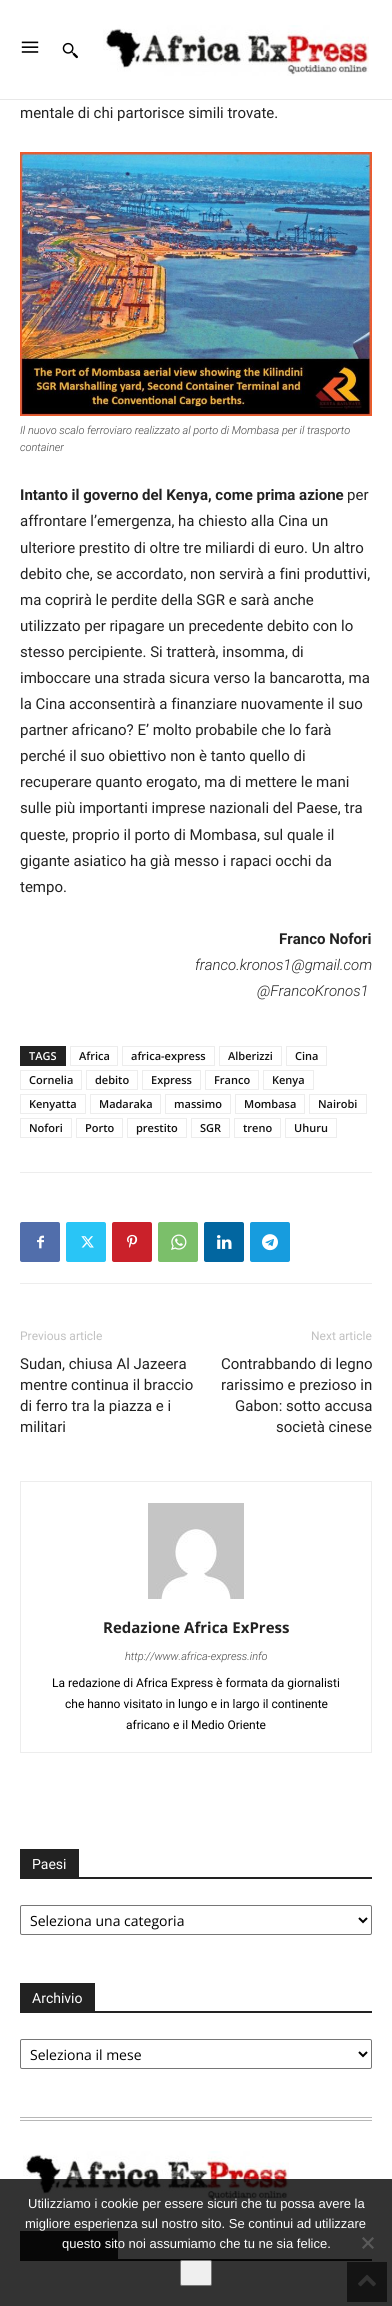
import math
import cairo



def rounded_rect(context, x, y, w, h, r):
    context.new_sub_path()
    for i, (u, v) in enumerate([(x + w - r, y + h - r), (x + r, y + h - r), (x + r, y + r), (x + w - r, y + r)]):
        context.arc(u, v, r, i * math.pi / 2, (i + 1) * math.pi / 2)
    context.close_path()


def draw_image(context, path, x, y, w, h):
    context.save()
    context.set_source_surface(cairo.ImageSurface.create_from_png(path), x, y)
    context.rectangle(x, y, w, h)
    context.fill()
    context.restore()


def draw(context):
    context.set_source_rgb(1, 1, 1)
    context.paint()
    draw_image(context, "images/1.png", 21, 41, 18, 12)
    draw_image(context, "images/2.png", 62, 42, 16, 17)
    draw_image(context, "images/3.png", 103, 25, 266, 51)
    context.set_source_rgb(232 / 255, 232 / 255, 232 / 255)
    context.rectangle(0, 99, 392, 1)
    context.fill()
    draw_image(context, "images/4.png", 20, 152, 352, 264)
    context.set_source_rgb(34 / 255, 34 / 255, 34 / 255)
    context.rectangle(20, 1046, 46, 20)
    context.fill()
    context.rectangle(70.5, 1046.5, 47, 19)
    context.set_source_rgb(237 / 255, 237 / 255, 237 / 255)
    context.set_line_width(1)
    context.stroke()
    context.rectangle(122.5, 1046.5, 92, 19)
    context.stroke()
    context.rectangle(219.5, 1046.5, 62, 19)
    context.stroke()
    context.rectangle(286.5, 1046.5, 40, 19)
    context.stroke()
    context.rectangle(20.5, 1070.5, 61, 19)
    context.stroke()
    context.rectangle(86.5, 1070.5, 51, 19)
    context.stroke()
    context.rectangle(142.5, 1070.5, 58, 19)
    context.stroke()
    context.rectangle(205.5, 1070.5, 53, 19)
    context.stroke()
    context.rectangle(263.5, 1070.5, 50, 19)
    context.stroke()
    context.rectangle(20.5, 1094.5, 65, 19)
    context.stroke()
    context.rectangle(90.5, 1094.5, 70, 19)
    context.stroke()
    context.rectangle(165.5, 1094.5, 65, 19)
    context.stroke()
    context.rectangle(235.5, 1094.5, 69, 19)
    context.stroke()
    context.rectangle(309.5, 1094.5, 57, 19)
    context.stroke()
    context.rectangle(20.5, 1118.5, 51, 19)
    context.stroke()
    context.rectangle(76.5, 1118.5, 46, 19)
    context.stroke()
    context.rectangle(127.5, 1118.5, 59, 19)
    context.stroke()
    context.rectangle(191.5, 1118.5, 38, 19)
    context.stroke()
    context.rectangle(234.5, 1118.5, 46, 19)
    context.stroke()
    context.rectangle(285.5, 1118.5, 51, 19)
    context.stroke()
    context.rectangle(20, 1172, 352, 1)
    context.fill()
    context.rectangle(20, 1283, 352, 1)
    context.fill()
    context.set_source_rgb(81 / 255, 110 / 255, 171 / 255)
    rounded_rect(context, 20, 1222, 40, 40, 2)
    context.fill()
    draw_image(context, "images/5.png", 37, 1235, 7, 14)
    context.set_source_rgb(41 / 255, 197 / 255, 246 / 255)
    rounded_rect(context, 66, 1222, 40, 40, 2)
    context.fill()
    draw_image(context, "images/6.png", 81, 1236, 13, 12)
    context.set_source_rgb(202 / 255, 33 / 255, 42 / 255)
    rounded_rect(context, 112, 1222, 40, 40, 2)
    context.fill()
    draw_image(context, "images/7.png", 127, 1234, 11, 14)
    context.set_source_rgb(123 / 255, 191 / 255, 106 / 255)
    rounded_rect(context, 158, 1222, 40, 40, 2)
    context.fill()
    draw_image(context, "images/8.png", 171, 1234, 16, 16)
    context.set_source_rgb(2 / 255, 102 / 255, 160 / 255)
    rounded_rect(context, 204, 1222, 40, 40, 2)
    context.fill()
    draw_image(context, "images/9.png", 217, 1235, 15, 14)
    context.set_source_rgb(23 / 255, 156 / 255, 222 / 255)
    rounded_rect(context, 250, 1222, 40, 40, 2)
    context.fill()
    draw_image(context, "images/10.png", 262, 1234, 16, 17)
    context.rectangle(20.5, 1481.5, 351, 271)
    context.set_source_rgb(237 / 255, 237 / 255, 237 / 255)
    context.stroke()
    draw_image(context, "images/11.png", 148, 1503, 96, 96)
    context.set_source_rgb(34 / 255, 34 / 255, 34 / 255)
    context.rectangle(20, 1877, 352, 2)
    context.fill()
    context.rectangle(20, 1849, 59, 28)
    context.fill()
    rounded_rect(context, 20.5, 1905.5, 351, 29, 1.5)
    context.set_source_rgb(118 / 255, 118 / 255, 118 / 255)
    context.stroke()
    context.new_path()
    context.move_to(359, 1918)
    context.line_to(363, 1922)
    context.line_to(367, 1918)
    context.set_source_rgb(0, 0, 0)
    context.set_line_width(2)
    context.stroke()
    context.set_source_rgb(34 / 255, 34 / 255, 34 / 255)
    context.rectangle(20, 2011, 352, 2)
    context.fill()
    context.rectangle(20, 1983, 75, 28)
    context.fill()
    rounded_rect(context, 20.5, 2039.5, 351, 29, 1.5)
    context.set_source_rgb(118 / 255, 118 / 255, 118 / 255)
    context.set_line_width(1)
    context.stroke()
    context.new_path()
    context.move_to(359, 2052)
    context.line_to(363, 2056)
    context.line_to(367, 2052)
    context.set_source_rgb(0, 0, 0)
    context.set_line_width(2)
    context.stroke()
    context.set_source_rgb(183 / 255, 183 / 255, 183 / 255)
    context.rectangle(20, 2117, 352, 1)
    context.fill()
    context.rectangle(20, 2120, 352, 1)
    context.fill()
    draw_image(context, "images/3.png", 23, 2151, 266, 51)
    context.set_source_rgb(34 / 255, 34 / 255, 34 / 255)
    context.rectangle(20, 2259, 352, 2)
    context.fill()
    context.rectangle(20, 2231, 98, 28)
    context.fill()
    context.set_source_rgb(102 / 255, 102 / 255, 102 / 255)
    context.rectangle(347, 2262, 40, 40)
    context.fill()
    draw_image(context, "images/12.png", 358, 2274, 18, 13)
    context.set_source_rgba(0, 0, 0, 0.8)
    context.rectangle(0, 2179, 392, 127)
    context.fill()
    context.set_source_rgb(90 / 255, 90 / 255, 90 / 255)
    context.new_path()
    context.move_to(372.5, 2237)
    context.line_to(374, 2238.5)
    context.line_to(363.5, 2249)
    context.line_to(362, 2247.5)
    context.close_path()
    context.fill()
    context.new_path()
    context.move_to(362, 2238.5)
    context.line_to(363.5, 2237)
    context.line_to(374, 2247.5)
    context.line_to(372.5, 2249)
    context.close_path()
    context.fill()
    context.set_source_rgb(239 / 255, 239 / 255, 239 / 255)
    rounded_rect(context, 180.5, 2260.5, 31, 25, 1.5)
    context.fill_preserve()
    context.set_source_rgb(118 / 255, 118 / 255, 118 / 255)
    context.set_line_width(1)
    context.stroke()
    context.select_font_face("Roboto")
    context.set_font_size(15)
    context.set_source_rgb(34 / 255, 34 / 255, 34 / 255)
    context.move_to(20, 118)
    context.show_text("mentale di chi partorisce simili trovate.")
    context.select_font_face("Roboto Light", cairo.FontSlant.ITALIC)
    context.set_font_size(11)
    context.set_source_rgb(68 / 255, 68 / 255, 68 / 255)
    context.move_to(20, 434)
    context.show_text("Il nuovo scalo ferroviaro realizzato al porto di Mombasa per il trasporto")
    context.move_to(20, 451)
    context.show_text("container")
    context.select_font_face("Roboto", cairo.FontSlant.NORMAL, cairo.FontWeight.BOLD)
    context.set_font_size(15)
    context.set_source_rgb(34 / 255, 34 / 255, 34 / 255)
    context.move_to(20, 500)
    context.show_text("Intanto il governo del Kenya, come prima azione")
    context.select_font_face("Roboto")
    context.move_to(347, 500)
    context.show_text("per")
    context.move_to(20, 526)
    context.show_text("affrontare l’emergenza, ha chiesto alla Cina un")
    context.move_to(20, 553)
    context.show_text("ulteriore prestito di oltre tre miliardi di euro. Un altro")
    context.move_to(20, 579)
    context.show_text("debito che, se accordato, non servirà a fini produttivi,")
    context.move_to(20, 605)
    context.show_text("ma coprirà le perdite della SGR e sarà anche")
    context.move_to(20, 631)
    context.show_text("utilizzato per ripagare un precedente debito con lo")
    context.move_to(20, 657)
    context.show_text("stesso percipiente. Si tratterà, insomma, di")
    context.move_to(20, 683)
    context.show_text("imboccare una strada sicura verso la bancarotta, ma")
    context.move_to(20, 709)
    context.show_text("la Cina acconsentirà a finanziare nuovamente il suo")
    context.move_to(20, 735)
    context.show_text("partner africano? E’ molto probabile che lo farà")
    context.move_to(20, 761)
    context.show_text("perché il suo obiettivo non è tanto quello di")
    context.move_to(20, 787)
    context.show_text("recuperare quanto erogato, ma di mettere le mani")
    context.move_to(20, 813)
    context.show_text("sulle più importanti imprese nazionali del Paese, tra")
    context.move_to(20, 840)
    context.show_text("queste, proprio il porto di Mombasa, sul quale il")
    context.move_to(20, 866)
    context.show_text("gigante asiatico ha già messo i rapaci occhi da")
    context.move_to(20, 892)
    context.show_text("tempo.")
    context.select_font_face("Roboto", cairo.FontSlant.NORMAL, cairo.FontWeight.BOLD)
    context.move_to(279, 944)
    context.show_text("Franco Nofori")
    context.select_font_face("Roboto Light", cairo.FontSlant.ITALIC)
    context.move_to(195, 970)
    context.show_text("franco.kronos1@gmail.com")
    context.move_to(257, 996)
    context.show_text("@FrancoKronos1")
    context.select_font_face("Open Sans SemiBold")
    context.set_font_size(11)
    context.set_source_rgb(1, 1, 1)
    context.move_to(29, 1060)
    context.show_text("TAGS")
    context.set_source_rgb(17 / 255, 17 / 255, 17 / 255)
    context.move_to(79, 1060)
    context.show_text("Africa")
    context.move_to(131, 1060)
    context.show_text("africa-express")
    context.move_to(228, 1060)
    context.show_text("Alberizzi")
    context.move_to(295, 1060)
    context.show_text("Cina")
    context.move_to(29, 1084)
    context.show_text("Cornelia")
    context.move_to(95, 1084)
    context.show_text("debito")
    context.move_to(151, 1084)
    context.show_text("Express")
    context.move_to(214, 1084)
    context.show_text("Franco")
    context.move_to(272, 1084)
    context.show_text("Kenya")
    context.move_to(29, 1108)
    context.show_text("Kenyatta")
    context.move_to(99, 1108)
    context.show_text("Madaraka")
    context.move_to(174, 1108)
    context.show_text("massimo")
    context.move_to(244, 1108)
    context.show_text("Mombasa")
    context.move_to(318, 1108)
    context.show_text("Nairobi")
    context.move_to(29, 1132)
    context.show_text("Nofori")
    context.move_to(85, 1132)
    context.show_text("Porto")
    context.move_to(136, 1132)
    context.show_text("prestito")
    context.move_to(200, 1132)
    context.show_text("SGR")
    context.move_to(243, 1132)
    context.show_text("treno")
    context.move_to(294, 1132)
    context.show_text("Uhuru")
    context.select_font_face("Roboto")
    context.set_font_size(12)
    context.set_source_rgb(193 / 255, 193 / 255, 193 / 255)
    context.move_to(20, 1340)
    context.show_text("Previous article")
    context.set_font_size(15)
    context.set_source_rgb(34 / 255, 34 / 255, 34 / 255)
    context.move_to(20, 1369)
    context.show_text("Sudan, chiusa Al Jazeera")
    context.move_to(20, 1390)
    context.show_text("mentre continua il braccio")
    context.move_to(20, 1411)
    context.show_text("di ferro tra la piazza e i")
    context.move_to(20, 1432)
    context.show_text("militari")
    context.set_font_size(12)
    context.set_source_rgb(193 / 255, 193 / 255, 193 / 255)
    context.move_to(311, 1340)
    context.show_text("Next article")
    context.set_font_size(15)
    context.set_source_rgb(34 / 255, 34 / 255, 34 / 255)
    context.move_to(221, 1369)
    context.show_text("Contrabbando di legno")
    context.move_to(221, 1390)
    context.show_text("rarissimo e prezioso in")
    context.move_to(235, 1411)
    context.show_text("Gabon: sotto accusa")
    context.move_to(276, 1432)
    context.show_text("società cinese")
    context.select_font_face("Open Sans", cairo.FontSlant.NORMAL, cairo.FontWeight.BOLD)
    context.move_to(103, 1633)
    context.show_text("Redazione Africa ExPress")
    context.select_font_face("Roboto Light", cairo.FontSlant.ITALIC)
    context.set_font_size(11)
    context.set_source_rgb(68 / 255, 68 / 255, 68 / 255)
    context.move_to(125, 1660)
    context.show_text("http://www.africa-express.info")
    context.select_font_face("Roboto")
    context.set_font_size(12)
    context.set_source_rgb(0, 0, 0)
    context.move_to(52, 1687)
    context.show_text("La redazione di Africa Express è formata da giornalisti")
    context.move_to(65, 1708)
    context.show_text("che hanno visitato in lungo e in largo il continente")
    context.move_to(126, 1729)
    context.show_text("africano e il Medio Oriente")
    context.set_font_size(14)
    context.set_source_rgb(1, 1, 1)
    context.move_to(32, 1869)
    context.show_text("Paesi")
    context.select_font_face("Open Sans")
    context.set_source_rgb(0, 0, 0)
    context.move_to(30, 1926)
    context.show_text("Seleziona una categoria")
    context.select_font_face("Roboto")
    context.set_source_rgb(1, 1, 1)
    context.move_to(32, 2003)
    context.show_text("Archivio")
    context.select_font_face("Open Sans")
    context.set_source_rgb(0, 0, 0)
    context.move_to(30, 2060)
    context.show_text("Seleziona il mese")
    context.select_font_face("Liberation Sans")
    context.set_font_size(13)
    context.set_source_rgb(1, 1, 1)
    context.move_to(28, 2208)
    context.show_text("Utilizziamo i cookie per essere sicuri che tu possa avere la")
    context.move_to(25, 2228)
    context.show_text("migliore esperienza sul nostro sito. Se continui ad utilizzare")
    context.move_to(62, 2248)
    context.show_text("questo sito noi assumiamo che tu ne sia felice.")


surface = cairo.ImageSurface(cairo.Format.RGB24, 392, 2306)
context = cairo.Context(surface)
options = cairo.FontOptions()
options.set_hint_metrics(cairo.HintMetrics.OFF)
options.set_hint_style(cairo.HintStyle.NONE)
context.set_font_options(options)
context.set_miter_limit(4)
draw(context)
surface.write_to_png("out.png")
